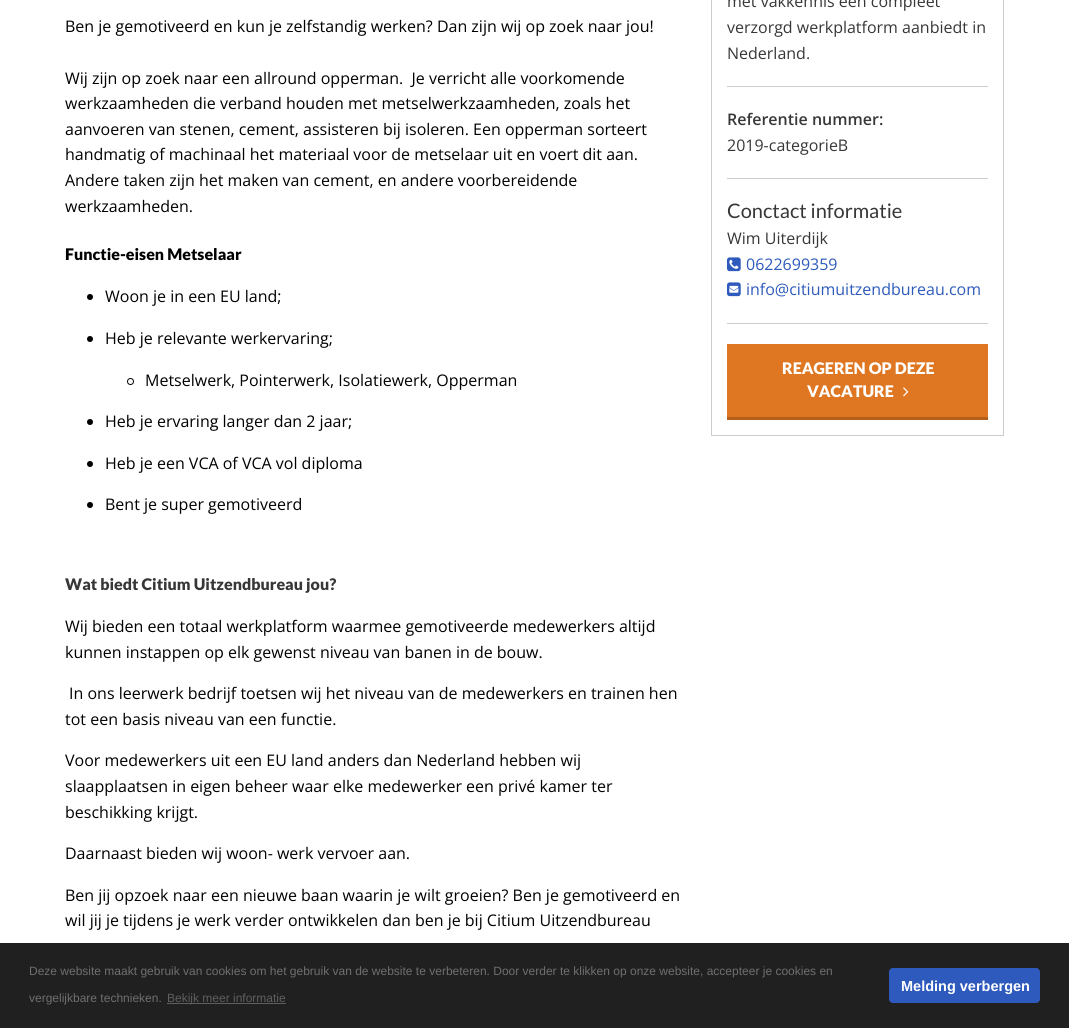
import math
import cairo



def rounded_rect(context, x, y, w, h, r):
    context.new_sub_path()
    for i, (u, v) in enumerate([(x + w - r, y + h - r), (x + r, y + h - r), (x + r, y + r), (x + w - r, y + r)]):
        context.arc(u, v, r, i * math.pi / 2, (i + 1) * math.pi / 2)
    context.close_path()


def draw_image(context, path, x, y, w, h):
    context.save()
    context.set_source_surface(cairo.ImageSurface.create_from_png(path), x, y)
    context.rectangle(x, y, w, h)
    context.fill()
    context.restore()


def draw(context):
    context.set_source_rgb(1, 1, 1)
    context.paint()
    context.set_source_rgb(0, 0, 0)
    context.arc(90, 297, 3, 0, 2 * math.pi)
    context.fill()
    context.arc(90, 339, 3, 0, 2 * math.pi)
    context.fill()
    context.arc(130.5, 381.5, 3, 0, 2 * math.pi)
    context.set_line_width(1)
    context.stroke()
    context.arc(90, 422, 3, 0, 2 * math.pi)
    context.fill()
    context.arc(90, 464, 3, 0, 2 * math.pi)
    context.fill()
    context.arc(90, 505, 3, 0, 2 * math.pi)
    context.fill()
    context.rectangle(711.5, -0.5, 292, 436)
    context.set_source_rgb(204 / 255, 204 / 255, 204 / 255)
    context.stroke()
    context.rectangle(727, 86, 261, 1)
    context.fill()
    context.rectangle(727, 178, 261, 1)
    context.fill()
    draw_image(context, "images/1.png", 727, 257, 14, 15)
    draw_image(context, "images/2.png", 727, 282, 14, 15)
    context.rectangle(727, 323, 261, 1)
    context.fill()
    context.set_source_rgb(223 / 255, 119 / 255, 34 / 255)
    context.rectangle(727, 344, 261, 73)
    context.fill()
    context.set_source_rgb(180 / 255, 95 / 255, 26 / 255)
    context.rectangle(727, 417, 261, 3)
    context.fill()
    draw_image(context, "images/3.png", 903, 387, 6, 10)
    context.set_source_rgb(32 / 255, 32 / 255, 32 / 255)
    context.rectangle(0, 943, 1069, 85)
    context.fill()
    context.set_source_rgb(95 / 255, 95 / 255, 95 / 255)
    context.rectangle(167, 1003, 119, 1)
    context.fill()
    context.set_source_rgb(45 / 255, 90 / 255, 188 / 255)
    rounded_rect(context, 889, 968, 151, 35, 4)
    context.fill()
    context.select_font_face("Open Sans")
    context.set_font_size(16)
    context.set_source_rgb(0, 0, 0)
    context.move_to(65, 32)
    context.show_text("Ben je gemotiveerd en kun je zelfstandig werken? Dan zijn wij op zoek naar jou!")
    context.move_to(65, 84)
    context.show_text("Wij zijn op zoek naar een allround opperman.  Je verricht alle voorkomende")
    context.move_to(65, 109)
    context.show_text("werkzaamheden die verband houden met metselwerkzaamheden, zoals het")
    context.move_to(65, 135)
    context.show_text("aanvoeren van stenen, cement, assisteren bij isoleren. Een opperman sorteert")
    context.move_to(65, 160)
    context.show_text("handmatig of machinaal het materiaal voor de metselaar uit en voert dit aan.")
    context.move_to(65, 186)
    context.show_text("Andere taken zijn het maken van cement, en andere voorbereidende")
    context.move_to(65, 212)
    context.show_text("werkzaamheden.")
    context.select_font_face("Lato Black")
    context.move_to(65, 260)
    context.show_text("Functie-eisen Metselaar")
    context.select_font_face("Open Sans")
    context.move_to(105, 302)
    context.show_text("Woon je in een EU land;")
    context.move_to(105, 344)
    context.show_text("Heb je relevante werkervaring;")
    context.move_to(145, 386)
    context.show_text("Metselwerk, Pointerwerk, Isolatiewerk, Opperman")
    context.move_to(105, 427)
    context.show_text("Heb je ervaring langer dan 2 jaar;")
    context.move_to(105, 469)
    context.show_text("Heb je een VCA of VCA vol diploma")
    context.move_to(105, 510)
    context.show_text("Bent je super gemotiveerd")
    context.select_font_face("Lato Black")
    context.set_source_rgb(55 / 255, 55 / 255, 55 / 255)
    context.move_to(65, 590)
    context.show_text("Wat biedt Citium Uitzendbureau jou?")
    context.select_font_face("Open Sans")
    context.set_source_rgb(0, 0, 0)
    context.move_to(65, 632)
    context.show_text("Wij bieden een totaal werkplatform waarmee gemotiveerde medewerkers altijd")
    context.move_to(65, 658)
    context.show_text("kunnen instappen op elk gewenst niveau van banen in de bouw.")
    context.move_to(69, 699)
    context.show_text("In ons leerwerk bedrijf toetsen wij het niveau van de medewerkers en trainen hen")
    context.move_to(65, 725)
    context.show_text("tot een basis niveau van een functie.")
    context.move_to(65, 766)
    context.show_text("Voor medewerkers uit een EU land anders dan Nederland hebben wij")
    context.move_to(65, 792)
    context.show_text("slaapplaatsen in eigen beheer waar elke medewerker een privé kamer ter")
    context.move_to(65, 818)
    context.show_text("beschikking krijgt.")
    context.move_to(65, 859)
    context.show_text("Daarnaast bieden wij woon- werk vervoer aan.")
    context.move_to(65, 901)
    context.show_text("Ben jij opzoek naar een nieuwe baan waarin je wilt groeien? Ben je gemotiveerd en")
    context.move_to(65, 926)
    context.show_text("wil jij je tijdens je werk verder ontwikkelen dan ben je bij Citium Uitzendbureau")
    context.set_source_rgb(55 / 255, 55 / 255, 55 / 255)
    context.move_to(727, 7)
    context.show_text("met vakkennis een compleet")
    context.move_to(727, 33)
    context.show_text("verzorgd werkplatform aanbiedt in")
    context.move_to(727, 59)
    context.show_text("Nederland.")
    context.select_font_face("Open Sans SemiBold")
    context.move_to(727, 125)
    context.show_text("Referentie nummer:")
    context.select_font_face("Open Sans")
    context.move_to(727, 151)
    context.show_text("2019-categorieB")
    context.select_font_face("Lato")
    context.set_font_size(20)
    context.move_to(727, 218)
    context.show_text("Conctact informatie")
    context.select_font_face("Open Sans")
    context.set_font_size(16)
    context.move_to(727, 244)
    context.show_text("Wim Uiterdijk")
    context.set_source_rgb(45 / 255, 90 / 255, 188 / 255)
    context.move_to(746, 270)
    context.show_text("0622699359")
    context.move_to(746, 295)
    context.show_text("info@citiumuitzendbureau.com")
    context.select_font_face("Lato Black")
    context.set_source_rgb(1, 1, 1)
    context.move_to(782, 374)
    context.show_text("REAGEREN OP DEZE")
    context.move_to(807, 397)
    context.show_text("VACATURE")
    context.select_font_face("Liberation Sans")
    context.set_font_size(12)
    context.set_source_rgb(111 / 255, 111 / 255, 111 / 255)
    context.move_to(29, 975)
    context.show_text("Deze website maakt gebruik van cookies om het gebruik van de website te verbeteren. Door verder te klikken op onze website, accepteer je cookies en")
    context.move_to(29, 1002)
    context.show_text("vergelijkbare technieken.")
    context.set_source_rgb(95 / 255, 95 / 255, 95 / 255)
    context.move_to(167, 1002)
    context.show_text("Bekijk meer informatie")
    context.select_font_face("Liberation Sans", cairo.FontSlant.NORMAL, cairo.FontWeight.BOLD)
    context.set_font_size(14.5)
    context.set_source_rgb(1, 1, 1)
    context.move_to(901, 991)
    context.show_text("Melding verbergen")


surface = cairo.ImageSurface(cairo.Format.RGB24, 1069, 1028)
context = cairo.Context(surface)
options = cairo.FontOptions()
options.set_hint_metrics(cairo.HintMetrics.OFF)
options.set_hint_style(cairo.HintStyle.NONE)
context.set_font_options(options)
context.set_miter_limit(4)
draw(context)
surface.write_to_png("out.png")
